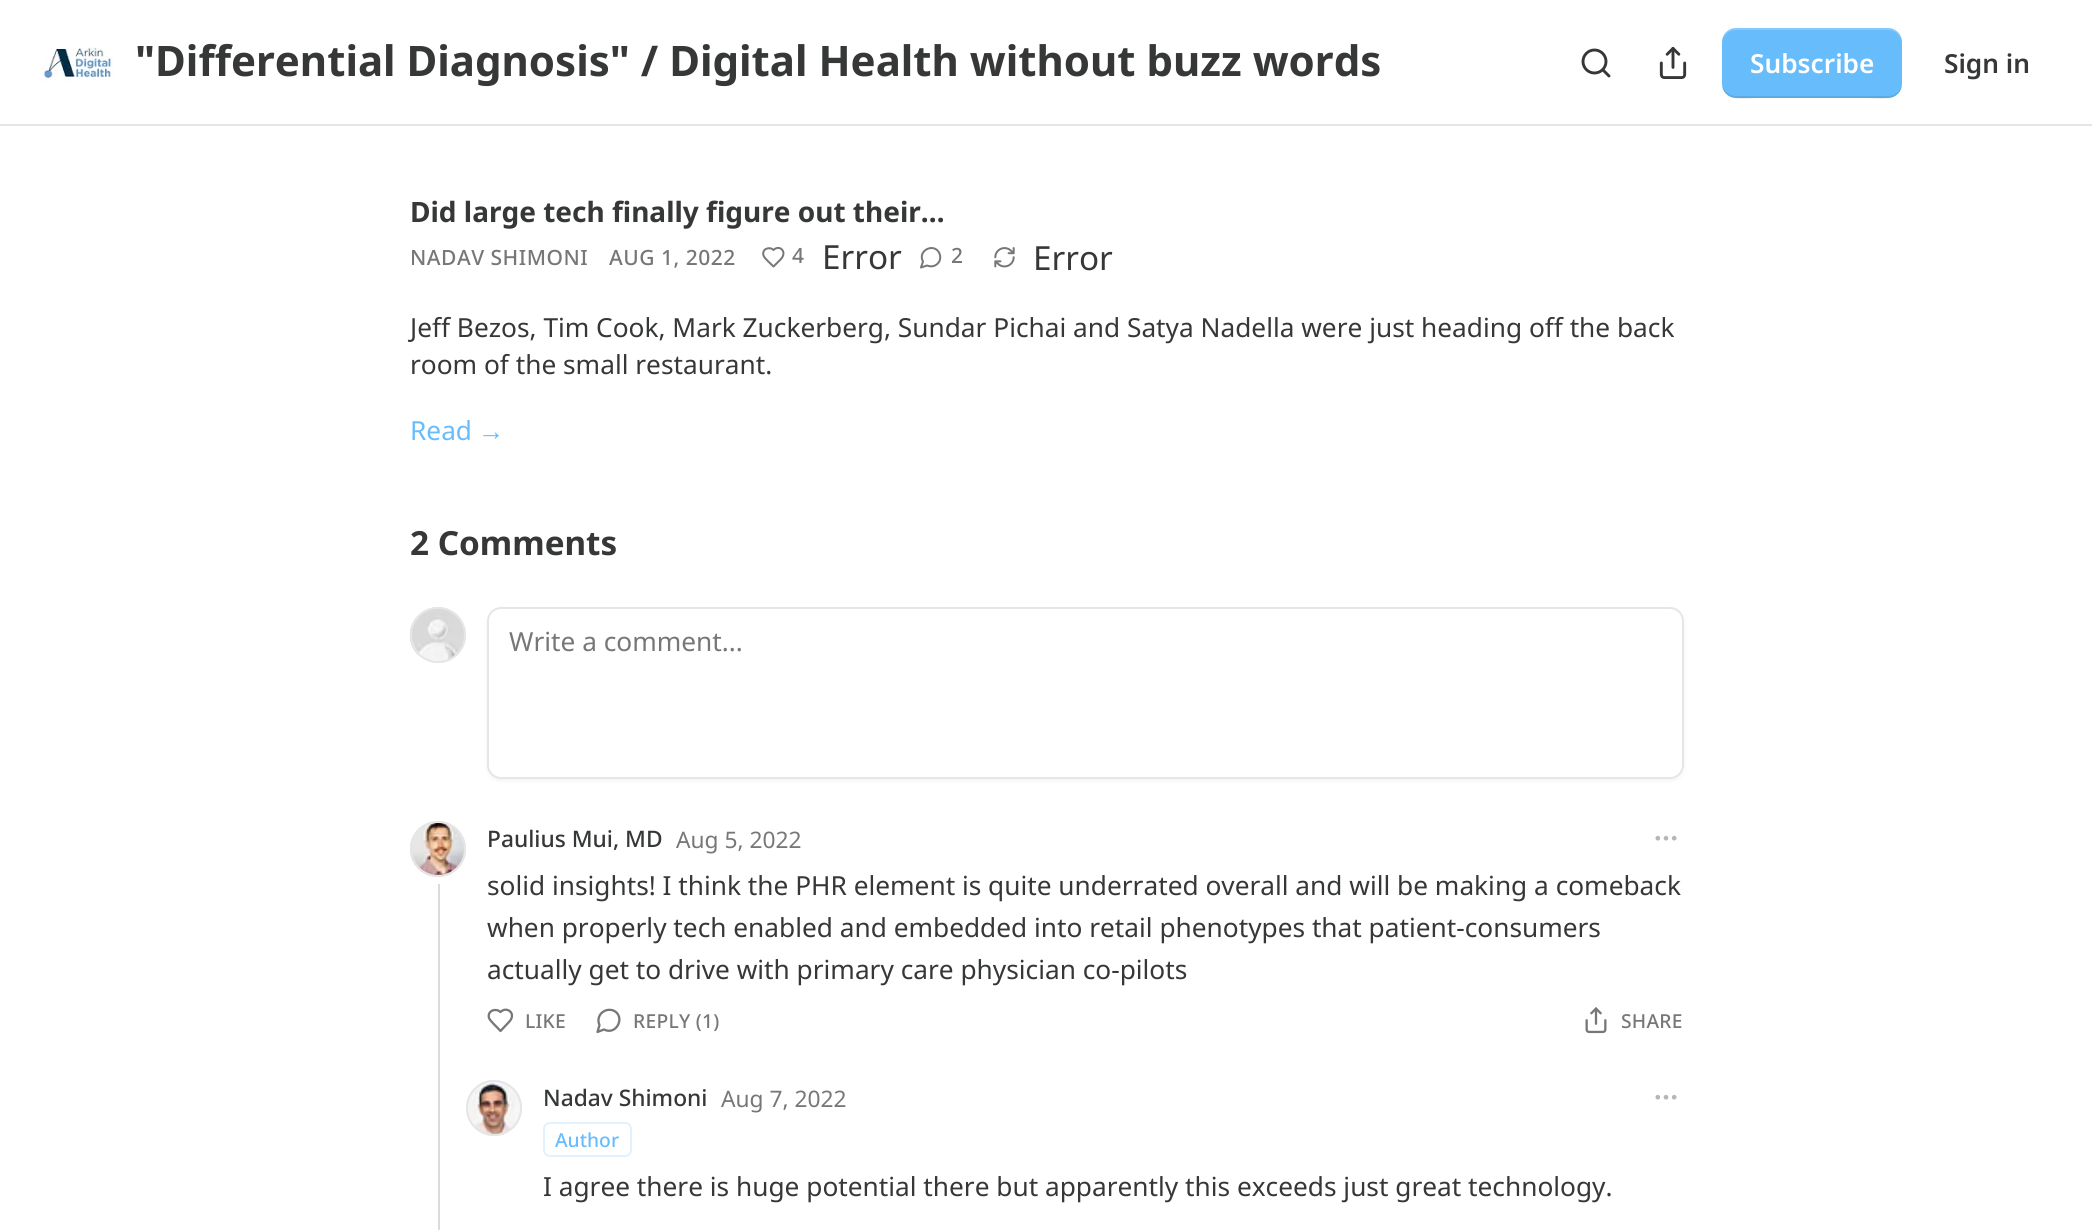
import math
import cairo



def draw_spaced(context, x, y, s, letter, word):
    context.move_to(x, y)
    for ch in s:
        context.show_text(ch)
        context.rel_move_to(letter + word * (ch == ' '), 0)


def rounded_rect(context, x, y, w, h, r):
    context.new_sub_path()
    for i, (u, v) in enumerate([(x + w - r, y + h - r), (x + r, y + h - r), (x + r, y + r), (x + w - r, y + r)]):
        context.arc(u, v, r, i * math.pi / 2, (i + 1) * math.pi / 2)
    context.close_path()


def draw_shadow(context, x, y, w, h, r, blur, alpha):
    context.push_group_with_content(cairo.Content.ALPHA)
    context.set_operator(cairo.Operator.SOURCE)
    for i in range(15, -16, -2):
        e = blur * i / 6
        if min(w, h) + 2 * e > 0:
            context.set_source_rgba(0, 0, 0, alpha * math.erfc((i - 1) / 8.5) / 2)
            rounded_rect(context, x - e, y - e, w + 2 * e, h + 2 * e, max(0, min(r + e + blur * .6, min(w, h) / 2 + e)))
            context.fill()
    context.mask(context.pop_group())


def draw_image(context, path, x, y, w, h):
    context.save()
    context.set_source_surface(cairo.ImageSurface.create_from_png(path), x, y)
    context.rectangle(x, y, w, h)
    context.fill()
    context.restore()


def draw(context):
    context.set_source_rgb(1, 1, 1)
    context.paint()
    context.set_source_rgb(230 / 255, 230 / 255, 230 / 255)
    context.rectangle(0, 124, 2092, 2)
    context.fill()
    draw_image(context, "images/1.png", 44, 47, 70, 37)
    context.arc(1594.5, 61.5, 11.5, 0, 2 * math.pi)
    context.set_source_rgb(54 / 255, 55 / 255, 55 / 255)
    context.set_line_width(2.9)
    context.stroke()
    context.new_path()
    context.move_to(1609, 76)
    context.line_to(1603, 70)
    context.set_line_cap(cairo.LineCap.ROUND)
    context.set_line_join(cairo.LineJoin.ROUND)
    context.stroke()
    draw_image(context, "images/2.png", 1659, 47, 28, 32)
    context.set_source_rgb(103 / 255, 189 / 255, 252 / 255)
    rounded_rect(context, 1722, 28, 180, 70, 14)
    context.fill()
    context.set_source_rgba(0, 0, 0, 0.1)
    context.new_path()
    context.move_to(1722, 82)
    context.curve_to(1722, 104, 1746, 98, 1761, 98)
    context.line_to(1863, 98)
    context.curve_to(1878, 98, 1902, 104, 1902, 82)
    context.curve_to(1902, 90, 1896, 96, 1888, 96)
    context.line_to(1736, 96)
    context.curve_to(1728, 96, 1722, 90, 1722, 82)
    context.close_path()
    context.fill()
    context.set_source_rgba(1, 1, 1, 0.2)
    context.new_path()
    context.move_to(1736, 30)
    context.line_to(1888, 30)
    context.curve_to(1896, 30, 1902, 36, 1902, 44)
    context.curve_to(1902, 22, 1878, 28, 1863, 28)
    context.line_to(1761, 28)
    context.curve_to(1746, 28, 1722, 22, 1722, 44)
    context.curve_to(1722, 36, 1728, 30, 1736, 30)
    context.close_path()
    context.fill()
    context.new_path()
    context.move_to(780.5, 259.5)
    context.curve_to(788, 252, 779.5, 244, 773.5, 250)
    context.curve_to(769.5, 246, 761.5, 249, 763.5, 255.5)
    context.curve_to(764.5, 258.5, 771, 264, 773.5, 266.5)
    context.close_path()
    context.set_source_rgb(119 / 255, 119 / 255, 119 / 255)
    context.set_line_width(2)
    context.stroke()
    context.new_path()
    context.move_to(927, 265.5)
    context.curve_to(931.5, 267.5, 937, 266, 939.5, 261)
    context.curve_to(940.5, 259, 940.5, 256, 939.5, 253.5)
    context.curve_to(934.5, 242, 917, 250.5, 923, 261.5)
    context.line_to(921, 267.5)
    context.close_path()
    context.stroke()
    draw_image(context, "images/3.png", 994, 247, 21, 21)
    context.arc(438, 635, 27, 0, 2 * math.pi)
    context.set_source_rgb(230 / 255, 230 / 255, 230 / 255)
    context.set_line_cap(cairo.LineCap.BUTT)
    context.set_line_join(cairo.LineJoin.MITER)
    context.stroke()
    draw_image(context, "images/4.png", 409, 607, 56, 56)
    context.arc(438, 635, 27, 0, 2 * math.pi)
    context.stroke()
    context.set_source_rgb(0, 0, 0)
    draw_shadow(context, 487, 609, 1197, 172, 14, 2, 0.05)
    context.set_source_rgb(1, 1, 1)
    rounded_rect(context, 488, 608, 1195, 170, 13)
    context.fill_preserve()
    context.set_source_rgb(230 / 255, 230 / 255, 230 / 255)
    context.stroke()
    context.set_source_rgb(219 / 255, 219 / 255, 219 / 255)
    context.rectangle(438, 884, 2, 346)
    context.fill()
    context.arc(438, 849, 27, 0, 2 * math.pi)
    context.set_source_rgb(230 / 255, 230 / 255, 230 / 255)
    context.stroke()
    draw_image(context, "images/5.png", 410, 821, 55, 56)
    context.arc(438, 849, 27, 0, 2 * math.pi)
    context.stroke()
    context.arc(1666, 838.2, 1.2, 0, 2 * math.pi)
    context.set_source_rgb(182 / 255, 182 / 255, 182 / 255)
    context.set_line_width(2.3)
    context.stroke()
    context.arc(1674.2, 838.2, 1.2, 0, 2 * math.pi)
    context.stroke()
    context.arc(1657.8, 838.2, 1.2, 0, 2 * math.pi)
    context.stroke()
    context.new_path()
    context.move_to(508.5, 1022.5)
    context.curve_to(517.5, 1014, 507, 1005.5, 500.5, 1012)
    context.curve_to(495.5, 1007.5, 487, 1011, 489, 1018)
    context.curve_to(490.5, 1021.5, 498, 1028, 500.5, 1031)
    context.close_path()
    context.set_source_rgb(119 / 255, 119 / 255, 119 / 255)
    context.set_line_cap(cairo.LineCap.ROUND)
    context.set_line_join(cairo.LineJoin.ROUND)
    context.stroke()
    context.new_path()
    context.move_to(604, 1029.5)
    context.curve_to(616.5, 1036, 626, 1016.5, 613.5, 1010.5)
    context.curve_to(610.5, 1009.5, 607, 1009.5, 604.5, 1011)
    context.curve_to(599, 1013.5, 597, 1020, 599.5, 1025)
    context.line_to(597.5, 1032)
    context.close_path()
    context.stroke()
    draw_image(context, "images/6.png", 1585, 1007, 22, 27)
    context.arc(494, 1108, 27, 0, 2 * math.pi)
    context.set_source_rgb(230 / 255, 230 / 255, 230 / 255)
    context.set_line_width(2)
    context.set_line_cap(cairo.LineCap.BUTT)
    context.set_line_join(cairo.LineJoin.MITER)
    context.stroke()
    draw_image(context, "images/7.png", 466, 1080, 55, 56)
    context.arc(494, 1108, 27, 0, 2 * math.pi)
    context.stroke()
    rounded_rect(context, 544, 1123, 87, 33, 6)
    context.set_source_rgb(225 / 255, 242 / 255, 254 / 255)
    context.stroke()
    context.arc(1666, 1097.2, 1.2, 0, 2 * math.pi)
    context.set_source_rgb(182 / 255, 182 / 255, 182 / 255)
    context.set_line_width(2.3)
    context.stroke()
    context.arc(1674.2, 1097.2, 1.2, 0, 2 * math.pi)
    context.stroke()
    context.arc(1657.8, 1097.2, 1.2, 0, 2 * math.pi)
    context.stroke()
    context.select_font_face("Noto Sans", cairo.FontSlant.NORMAL, cairo.FontWeight.BOLD)
    context.set_font_size(42)
    context.set_source_rgb(54 / 255, 55 / 255, 55 / 255)
    context.move_to(135, 76)
    context.show_text("\"Differential Diagnosis\" / Digital Health without buzz words")
    context.select_font_face("Noto Sans SemiBold")
    context.set_font_size(26.25)
    context.set_source_rgb(1, 1, 1)
    context.move_to(1750, 73)
    context.show_text("Subscribe")
    context.set_source_rgb(54 / 255, 55 / 255, 55 / 255)
    context.move_to(1944, 73)
    context.show_text("Sign in")
    context.select_font_face("Noto Sans", cairo.FontSlant.NORMAL, cairo.FontWeight.BOLD)
    context.set_font_size(28)
    context.move_to(410, 222)
    context.show_text("Did large tech finally figure out their…")
    context.select_font_face("Noto Sans Medium")
    context.set_font_size(21)
    context.set_source_rgb(119 / 255, 119 / 255, 119 / 255)
    draw_spaced(context, 410, 265, "NADAV SHIMONI", 0.5, 0)
    draw_spaced(context, 609, 265, "AUG 1, 2022", 0.5, 0)
    draw_spaced(context, 792, 263, "4", 0.5, 0)
    context.select_font_face("Noto Sans")
    context.set_font_size(33.25)
    context.set_source_rgb(54 / 255, 55 / 255, 55 / 255)
    context.move_to(822, 269)
    context.show_text("Error")
    context.select_font_face("Noto Sans Medium")
    context.set_font_size(21)
    context.set_source_rgb(119 / 255, 119 / 255, 119 / 255)
    draw_spaced(context, 951, 263, "2", 0.5, 0)
    context.select_font_face("Noto Sans")
    context.set_font_size(33.25)
    context.set_source_rgb(54 / 255, 55 / 255, 55 / 255)
    context.move_to(1033, 270)
    context.show_text("Error")
    context.set_font_size(26.25)
    context.move_to(410, 337)
    context.show_text("Jeff Bezos, Tim Cook, Mark Zuckerberg, Sundar Pichai and Satya Nadella were just heading off the back")
    context.move_to(410, 374)
    context.show_text("room of the small restaurant.")
    context.set_source_rgb(103 / 255, 189 / 255, 252 / 255)
    context.move_to(410, 440)
    context.show_text("Read")
    context.select_font_face("Liberation Sans")
    context.move_to(478, 440)
    context.show_text("→")
    context.select_font_face("Noto Sans", cairo.FontSlant.NORMAL, cairo.FontWeight.BOLD)
    context.set_font_size(33.25)
    context.set_source_rgb(54 / 255, 55 / 255, 55 / 255)
    context.move_to(410, 555)
    context.show_text("2 Comments")
    context.select_font_face("Noto Sans")
    context.set_font_size(26.25)
    context.set_source_rgb(119 / 255, 119 / 255, 119 / 255)
    context.move_to(509, 651)
    context.show_text("Write a comment...")
    context.select_font_face("Noto Sans Medium")
    context.set_font_size(22.75)
    context.set_source_rgb(54 / 255, 55 / 255, 55 / 255)
    context.move_to(487, 847)
    context.show_text("Paulius Mui, MD")
    context.select_font_face("Noto Sans")
    context.set_source_rgb(119 / 255, 119 / 255, 119 / 255)
    context.move_to(676, 848)
    context.show_text("Aug 5, 2022")
    context.set_font_size(26.25)
    context.set_source_rgb(54 / 255, 55 / 255, 55 / 255)
    context.move_to(487, 895)
    context.show_text("solid insights! I think the PHR element is quite underrated overall and will be making a comeback")
    context.move_to(487, 937)
    context.show_text("when properly tech enabled and embedded into retail phenotypes that patient-consumers")
    context.move_to(487, 979)
    context.show_text("actually get to drive with primary care physician co-pilots")
    context.select_font_face("Noto Sans Medium")
    context.set_font_size(19.25)
    context.set_source_rgb(119 / 255, 119 / 255, 119 / 255)
    draw_spaced(context, 525, 1028, "LIKE", 0.25, 0)
    draw_spaced(context, 633, 1028, "REPLY (1)", 0.25, 0)
    draw_spaced(context, 1621, 1028, "SHARE", 0.25, 0)
    context.set_font_size(22.75)
    context.set_source_rgb(54 / 255, 55 / 255, 55 / 255)
    context.move_to(543, 1106)
    context.show_text("Nadav Shimoni")
    context.select_font_face("Noto Sans")
    context.set_source_rgb(119 / 255, 119 / 255, 119 / 255)
    context.move_to(721, 1107)
    context.show_text("Aug 7, 2022")
    context.select_font_face("Noto Sans Medium")
    context.set_font_size(19.25)
    context.set_source_rgb(103 / 255, 189 / 255, 252 / 255)
    context.move_to(555, 1147)
    context.show_text("Author")
    context.select_font_face("Noto Sans")
    context.set_font_size(26.25)
    context.set_source_rgb(54 / 255, 55 / 255, 55 / 255)
    context.move_to(543, 1196)
    context.show_text("I agree there is huge potential there but apparently this exceeds just great technology.")


surface = cairo.ImageSurface(cairo.Format.RGB24, 2092, 1230)
context = cairo.Context(surface)
options = cairo.FontOptions()
options.set_hint_metrics(cairo.HintMetrics.OFF)
options.set_hint_style(cairo.HintStyle.NONE)
context.set_font_options(options)
context.set_miter_limit(4)
draw(context)
surface.write_to_png("out.png")
